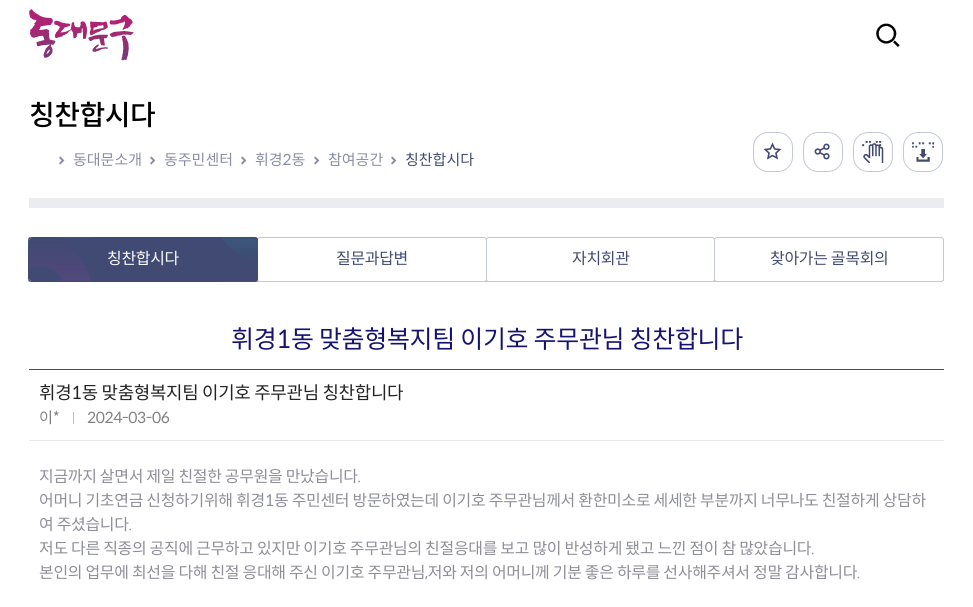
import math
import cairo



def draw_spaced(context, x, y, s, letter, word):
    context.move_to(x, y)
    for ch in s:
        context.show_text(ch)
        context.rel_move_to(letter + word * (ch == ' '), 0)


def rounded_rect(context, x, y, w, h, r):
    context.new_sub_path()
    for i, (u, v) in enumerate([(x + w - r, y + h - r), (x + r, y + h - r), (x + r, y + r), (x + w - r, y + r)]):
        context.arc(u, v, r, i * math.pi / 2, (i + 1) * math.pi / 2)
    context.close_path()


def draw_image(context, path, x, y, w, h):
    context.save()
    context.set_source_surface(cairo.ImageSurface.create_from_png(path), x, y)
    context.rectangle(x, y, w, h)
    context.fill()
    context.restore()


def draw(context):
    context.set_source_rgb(1, 1, 1)
    context.paint()
    draw_image(context, "images/1.png", 29, 9, 105, 52)
    draw_image(context, "images/2.png", 876, 23, 24, 24)
    draw_image(context, "images/3.png", 59, 156, 6, 9)
    draw_image(context, "images/3.png", 150, 156, 6, 9)
    draw_image(context, "images/3.png", 241, 156, 6, 9)
    draw_image(context, "images/3.png", 314, 156, 6, 9)
    draw_image(context, "images/3.png", 391, 156, 6, 9)
    rounded_rect(context, 753.5, 132.5, 39, 39, 14.5)
    context.set_source_rgb(197 / 255, 201 / 255, 214 / 255)
    context.set_line_width(1)
    context.stroke()
    draw_image(context, "images/4.png", 763, 142, 19, 18)
    rounded_rect(context, 803.5, 132.5, 39, 39, 14.5)
    context.stroke()
    draw_image(context, "images/5.png", 814, 143, 16, 17)
    rounded_rect(context, 853.5, 132.5, 39, 39, 14.5)
    context.stroke()
    draw_image(context, "images/6.png", 862, 141, 22, 22)
    rounded_rect(context, 903.5, 132.5, 39, 39, 14.5)
    context.stroke()
    draw_image(context, "images/7.png", 912, 142, 22, 20)
    context.set_source_rgb(235 / 255, 236 / 255, 242 / 255)
    context.rectangle(29, 198, 915, 10)
    context.fill()
    rounded_rect(context, 29.5, 238.5, 914, 43, 2.5)
    context.set_source_rgb(197 / 255, 201 / 255, 214 / 255)
    context.stroke()
    context.set_source_rgb(1, 1, 1)
    rounded_rect(context, 257.5, 237.5, 229, 44, 2.5)
    context.fill_preserve()
    context.set_source_rgb(197 / 255, 201 / 255, 214 / 255)
    context.stroke()
    draw_image(context, "images/8.png", 28, 237, 230, 45)
    context.set_source_rgb(1, 1, 1)
    rounded_rect(context, 486.5, 237.5, 228, 44, 2.5)
    context.fill_preserve()
    context.set_source_rgb(197 / 255, 201 / 255, 214 / 255)
    context.stroke()
    context.set_source_rgb(1, 1, 1)
    rounded_rect(context, 714.5, 237.5, 229, 44, 2.5)
    context.fill_preserve()
    context.set_source_rgb(197 / 255, 201 / 255, 214 / 255)
    context.stroke()
    context.set_source_rgb(65 / 255, 74 / 255, 115 / 255)
    context.rectangle(29, 369, 915, 1)
    context.fill()
    context.set_source_rgb(231 / 255, 232 / 255, 236 / 255)
    context.rectangle(29, 440, 915, 1)
    context.fill()
    context.set_source_rgb(191 / 255, 191 / 255, 191 / 255)
    context.rectangle(73, 412, 1, 12)
    context.fill()
    context.select_font_face("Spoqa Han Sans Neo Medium")
    context.set_font_size(28)
    context.set_source_rgb(0, 0, 0)
    draw_spaced(context, 29, 125, "칭찬합시다", -0.5, 0)
    context.select_font_face("Spoqa Han Sans Neo")
    context.set_font_size(15)
    context.set_source_rgb(136 / 255, 141 / 255, 166 / 255)
    context.move_to(73, 165)
    context.show_text("동대문소개")
    context.move_to(164, 165)
    context.show_text("동주민센터")
    context.move_to(255, 165)
    context.show_text("휘경2동")
    context.move_to(328, 165)
    context.show_text("참여공간")
    context.set_source_rgb(65 / 255, 74 / 255, 115 / 255)
    context.move_to(405, 165)
    context.show_text("칭찬합시다")
    context.set_font_size(16)
    context.set_source_rgb(1, 1, 1)
    draw_spaced(context, 107, 264, "칭찬합시다", -0.32, 0)
    context.set_source_rgb(65 / 255, 74 / 255, 115 / 255)
    draw_spaced(context, 336, 264, "질문과답변", -0.32, 0)
    draw_spaced(context, 572, 264, "자치회관", -0.32, 0)
    draw_spaced(context, 770, 264, "찾아가는 골목회의", -0.32, 0)
    context.set_font_size(25)
    context.set_source_rgb(22 / 255, 18 / 255, 112 / 255)
    draw_spaced(context, 231, 348, "휘경1동 맞춤형복지팀 이기호 주무관님 칭찬합니다", -0.32, 0)
    context.set_font_size(17.9)
    context.set_source_rgb(34 / 255, 34 / 255, 34 / 255)
    draw_spaced(context, 39, 399, "휘경1동 맞춤형복지팀 이기호 주무관님 칭찬합니다", -0.32, 0)
    context.set_font_size(15.25)
    context.set_source_rgb(129 / 255, 129 / 255, 129 / 255)
    draw_spaced(context, 39, 423, "이*", -0.32, 0)
    draw_spaced(context, 87, 423, "2024-03-06", -0.32, 0)
    context.set_font_size(16)
    context.set_source_rgb(141 / 255, 142 / 255, 150 / 255)
    draw_spaced(context, 39, 482, "지금까지 살면서 제일 친절한 공무원을 만났습니다.", -0.32, 0)
    draw_spaced(context, 39, 506, "어머니 기초연금 신청하기위해 휘경1동 주민센터 방문하였는데 이기호 주무관님께서 환한미소로 세세한 부분까지 너무나도 친절하게 상담하", -0.32, 0)
    draw_spaced(context, 39, 530, "여 주셨습니다.", -0.32, 0)
    draw_spaced(context, 39, 554, "저도 다른 직종의 공직에 근무하고 있지만 이기호 주무관님의 친절응대를 보고 많이 반성하게 됐고 느낀 점이 참 많았습니다.", -0.32, 0)
    draw_spaced(context, 39, 578, "본인의 업무에 최선을 다해 친절 응대해 주신 이기호 주무관님,저와 저의 어머니께 기분 좋은 하루를 선사해주셔서 정말 감사합니다.", -0.32, 0)


surface = cairo.ImageSurface(cairo.Format.RGB24, 973, 607)
context = cairo.Context(surface)
options = cairo.FontOptions()
options.set_hint_metrics(cairo.HintMetrics.OFF)
options.set_hint_style(cairo.HintStyle.NONE)
context.set_font_options(options)
context.set_miter_limit(4)
draw(context)
surface.write_to_png("out.png")
